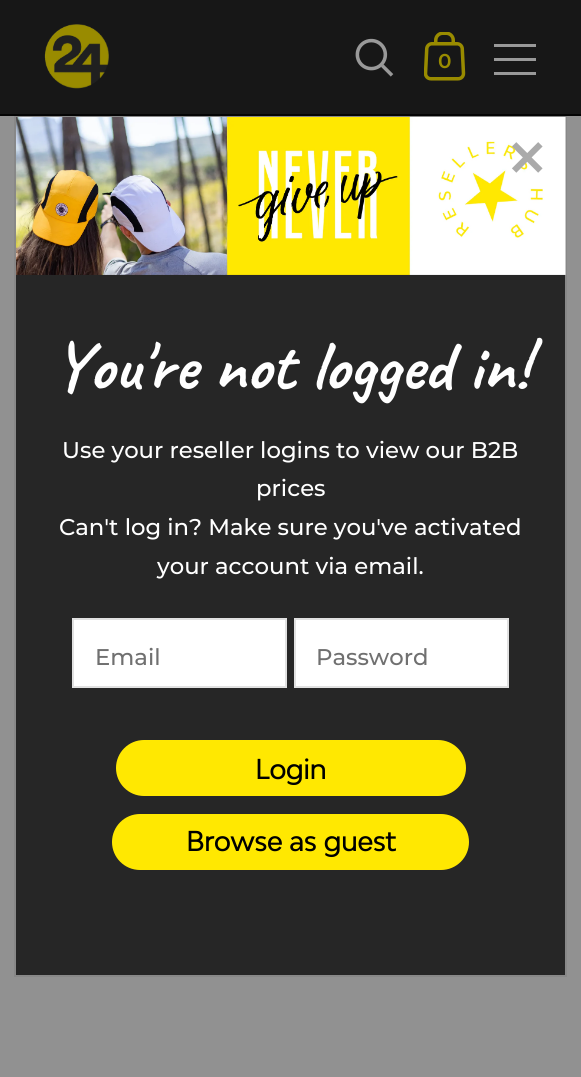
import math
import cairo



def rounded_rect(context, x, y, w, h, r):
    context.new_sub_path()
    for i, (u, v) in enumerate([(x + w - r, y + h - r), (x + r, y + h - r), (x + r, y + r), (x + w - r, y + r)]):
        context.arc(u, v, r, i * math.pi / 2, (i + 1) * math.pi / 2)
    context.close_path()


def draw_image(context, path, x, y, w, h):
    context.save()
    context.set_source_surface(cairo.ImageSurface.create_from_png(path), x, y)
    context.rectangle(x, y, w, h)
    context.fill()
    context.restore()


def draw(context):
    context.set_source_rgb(145 / 255, 145 / 255, 145 / 255)
    context.paint()
    context.set_source_rgb(4 / 255, 4 / 255, 4 / 255)
    context.rectangle(0, 114, 581, 2)
    context.fill()
    context.set_source_rgb(23 / 255, 23 / 255, 23 / 255)
    context.rectangle(0, 0, 581, 114)
    context.fill()
    draw_image(context, "images/1.png", 44, 24, 65, 65)
    draw_image(context, "images/2.png", 355, 38, 39, 39)
    draw_image(context, "images/3.png", 424, 32, 42, 49)
    context.set_source_rgb(153 / 255, 153 / 255, 153 / 255)
    context.rectangle(494, 44, 42, 3)
    context.fill()
    context.rectangle(494, 58, 42, 3)
    context.fill()
    context.rectangle(494, 72, 42, 3)
    context.fill()
    context.set_source_rgb(38 / 255, 38 / 255, 38 / 255)
    context.rectangle(16, 274, 549, 701)
    context.fill()
    context.rectangle(15, 117, 551, 859)
    context.set_source_rgb(136 / 255, 136 / 255, 136 / 255)
    context.stroke()
    draw_image(context, "images/4.png", 16, 117, 550, 158)
    context.set_source_rgb(1, 1, 1)
    context.rectangle(73, 619, 213, 68)
    context.fill_preserve()
    context.set_source_rgb(225 / 255, 225 / 255, 225 / 255)
    context.stroke()
    context.set_source_rgb(1, 1, 1)
    context.rectangle(295, 619, 213, 68)
    context.fill_preserve()
    context.set_source_rgb(225 / 255, 225 / 255, 225 / 255)
    context.stroke()
    context.set_source_rgb(1, 232 / 255, 1 / 255)
    rounded_rect(context, 116, 740, 350, 56, 28)
    context.fill()
    rounded_rect(context, 112, 814, 357, 56, 28)
    context.fill()
    context.select_font_face("Montserrat SemiBold")
    context.set_font_size(20)
    context.set_source_rgb(153 / 255, 139 / 255, 0)
    context.move_to(438, 68)
    context.show_text("0")
    context.select_font_face("DejaVu Sans", cairo.FontSlant.NORMAL, cairo.FontWeight.BOLD)
    context.set_font_size(49)
    context.set_source_rgb(170 / 255, 170 / 255, 170 / 255)
    context.move_to(506, 176)
    context.show_text("✕")
    context.select_font_face("Caveat", cairo.FontSlant.NORMAL, cairo.FontWeight.BOLD)
    context.set_font_size(70)
    context.set_source_rgb(1, 1, 1)
    context.move_to(53, 389)
    context.show_text("You're not logged in!")
    context.select_font_face("Montserrat Medium")
    context.set_font_size(22.75)
    context.move_to(62, 458)
    context.show_text("Use your reseller logins to view our B2B")
    context.move_to(256, 496)
    context.show_text("prices")
    context.move_to(59, 535)
    context.show_text("Can't log in? Make sure you've activated")
    context.move_to(157, 574)
    context.show_text("your account via email.")
    context.set_source_rgb(112 / 255, 112 / 255, 112 / 255)
    context.move_to(95, 665)
    context.show_text("Email")
    context.move_to(316, 665)
    context.show_text("Password")
    context.select_font_face("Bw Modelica", cairo.FontSlant.NORMAL, cairo.FontWeight.BOLD)
    context.set_font_size(26.25)
    context.set_source_rgb(0, 0, 0)
    context.move_to(255, 779)
    context.show_text("Login")
    context.move_to(186, 851)
    context.show_text("Browse as guest")


surface = cairo.ImageSurface(cairo.Format.RGB24, 581, 1077)
context = cairo.Context(surface)
options = cairo.FontOptions()
options.set_hint_metrics(cairo.HintMetrics.OFF)
options.set_hint_style(cairo.HintStyle.NONE)
context.set_font_options(options)
context.set_miter_limit(4)
draw(context)
surface.write_to_png("out.png")
